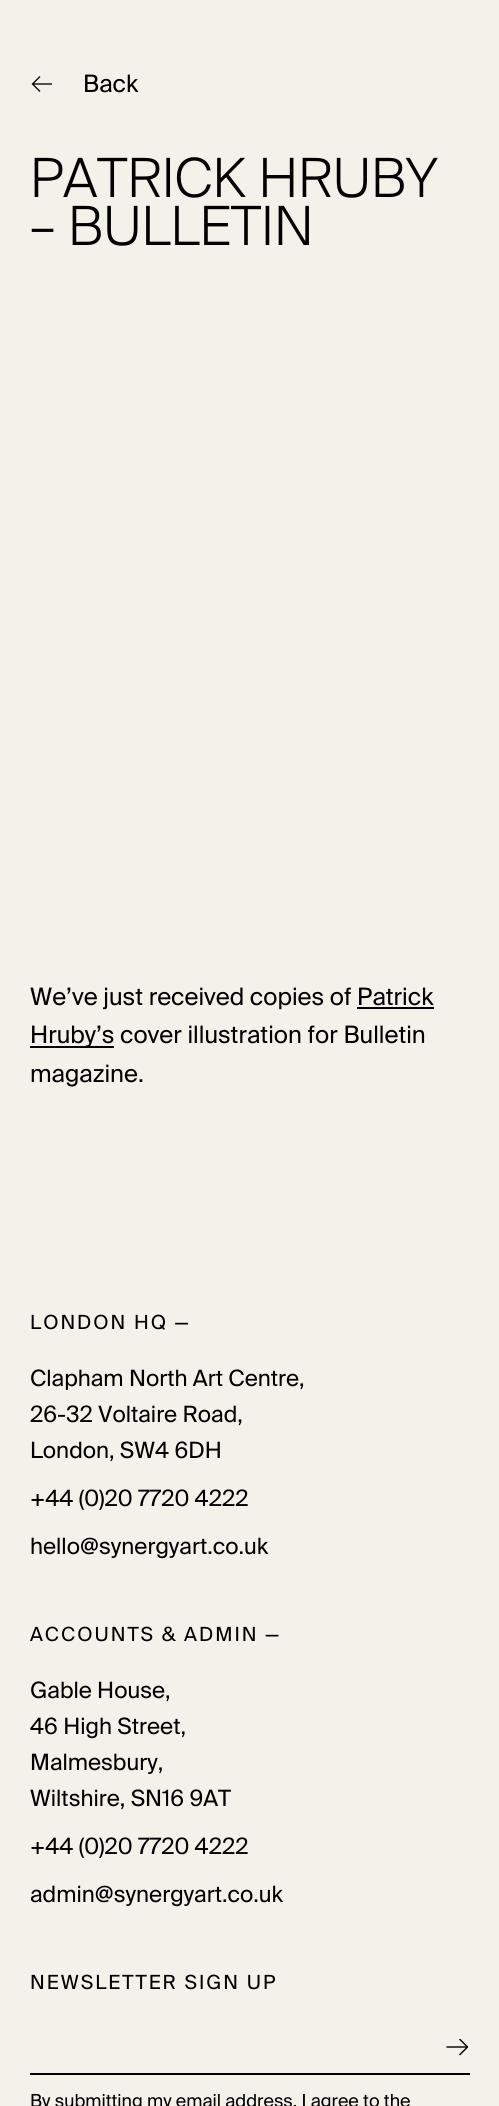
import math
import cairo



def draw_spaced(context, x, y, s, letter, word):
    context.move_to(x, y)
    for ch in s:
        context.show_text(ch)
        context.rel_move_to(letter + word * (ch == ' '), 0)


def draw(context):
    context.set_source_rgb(243 / 255, 242 / 255, 234 / 255)
    context.paint()
    context.new_path()
    context.move_to(40, 91.5)
    context.line_to(32.5, 84)
    context.line_to(40, 76.5)
    context.move_to(32.5, 84)
    context.line_to(52, 84)
    context.set_source_rgb(0, 0, 0)
    context.set_line_width(1.3)
    context.stroke()
    context.rectangle(357, 1007, 77, 2)
    context.fill()
    context.rectangle(30, 1046, 84, 2)
    context.fill()
    context.rectangle(30, 2073, 440, 2)
    context.fill()
    context.save()
    context.rectangle(446, 2039, 22, 17)
    context.clip()
    context.new_path()
    context.move_to(459.5, 2039)
    context.line_to(467.5, 2047)
    context.line_to(459.5, 2055)
    context.set_line_width(1.4)
    context.stroke()
    context.restore()
    context.new_path()
    context.move_to(467.5, 2047)
    context.line_to(446.5, 2047)
    context.set_line_width(1.4)
    context.stroke()
    context.select_font_face("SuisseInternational")
    context.set_font_size(24)
    context.move_to(83, 92)
    context.show_text("Back")
    context.select_font_face("SuisseInternational Light")
    context.set_font_size(54)
    context.move_to(30, 197)
    context.show_text("PATRICK HRUBY")
    context.move_to(30, 245)
    context.show_text("– BULLETIN")
    context.select_font_face("SuisseInternational")
    context.set_font_size(24)
    context.move_to(30, 1005)
    context.show_text("We’ve just received copies of Patrick")
    context.move_to(30, 1043)
    context.show_text("Hruby’s cover illustration for Bulletin")
    context.move_to(30, 1082)
    context.show_text("magazine.")
    context.set_font_size(19.5)
    draw_spaced(context, 30, 1329, "LONDON HQ —", 2, 0)
    context.set_font_size(22.5)
    context.move_to(30, 1386)
    context.show_text("Clapham North Art Centre,")
    context.move_to(30, 1422)
    context.show_text("26-32 Voltaire Road,")
    context.move_to(30, 1458)
    context.show_text("London, SW4 6DH")
    context.move_to(30, 1506)
    context.show_text("+44 (0)20 7720 4222")
    context.move_to(30, 1554)
    context.show_text("hello@synergyart.co.uk")
    context.set_font_size(19.5)
    draw_spaced(context, 30, 1641, "ACCOUNTS & ADMIN —", 2, 0)
    context.set_font_size(22.5)
    context.move_to(30, 1698)
    context.show_text("Gable House,")
    context.move_to(30, 1734)
    context.show_text("46 High Street,")
    context.move_to(30, 1770)
    context.show_text("Malmesbury,")
    context.move_to(30, 1806)
    context.show_text("Wiltshire, SN16 9AT")
    context.move_to(30, 1854)
    context.show_text("+44 (0)20 7720 4222")
    context.move_to(30, 1902)
    context.show_text("admin@synergyart.co.uk")
    context.set_font_size(19.5)
    draw_spaced(context, 30, 1989, "NEWSLETTER SIGN UP", 2, 0)
    context.set_font_size(18)
    context.move_to(30, 2107)
    context.show_text("By submitting my email address, I agree to the")


surface = cairo.ImageSurface(cairo.Format.RGB24, 499, 2106)
context = cairo.Context(surface)
options = cairo.FontOptions()
options.set_hint_metrics(cairo.HintMetrics.OFF)
options.set_hint_style(cairo.HintStyle.NONE)
context.set_font_options(options)
context.set_miter_limit(4)
draw(context)
surface.write_to_png("out.png")
